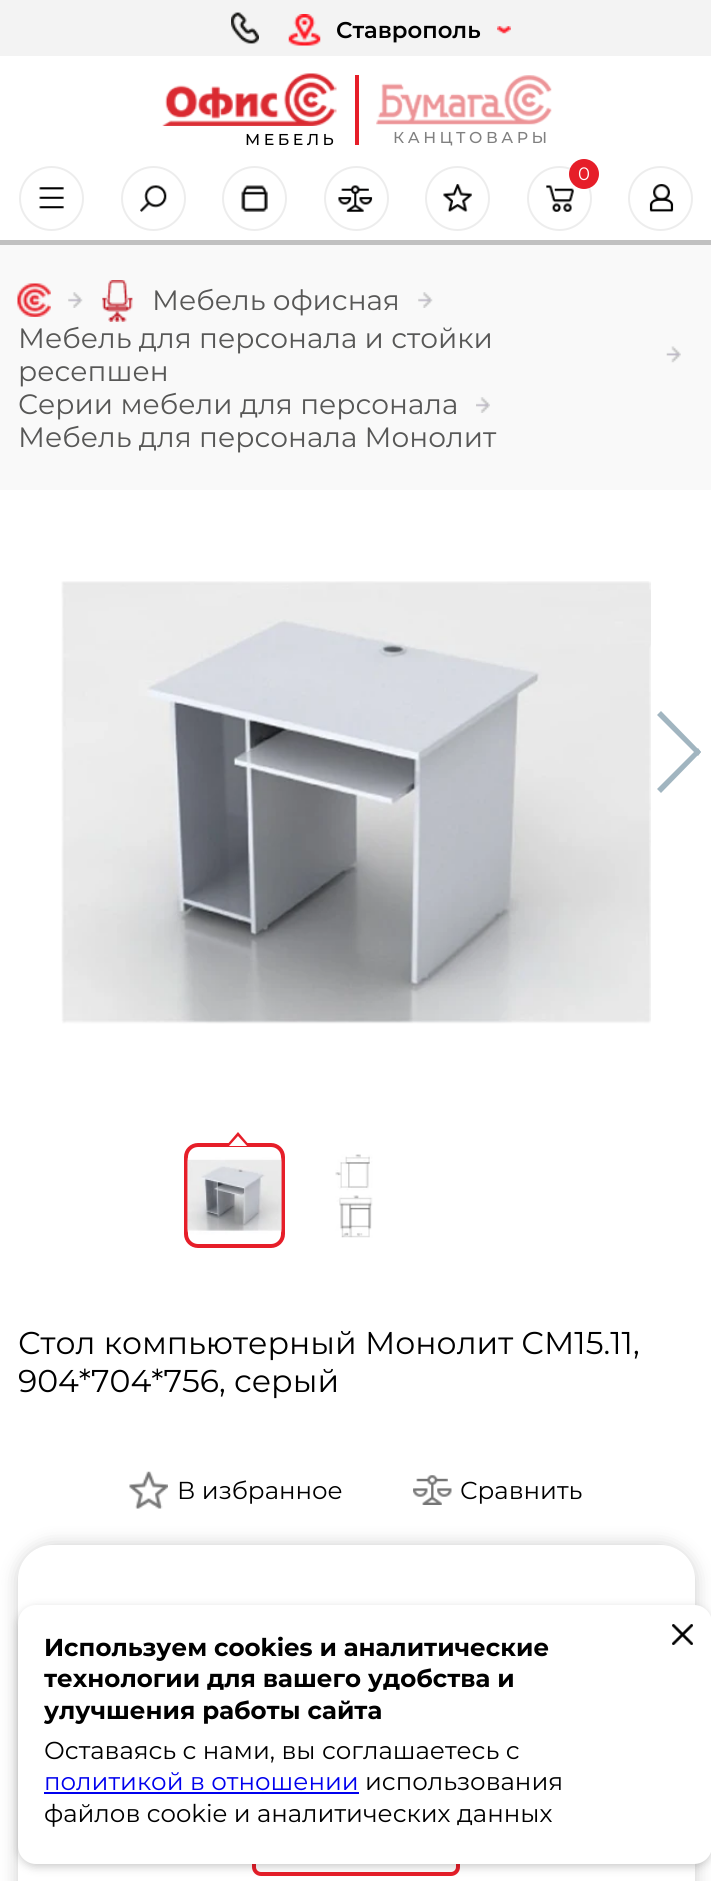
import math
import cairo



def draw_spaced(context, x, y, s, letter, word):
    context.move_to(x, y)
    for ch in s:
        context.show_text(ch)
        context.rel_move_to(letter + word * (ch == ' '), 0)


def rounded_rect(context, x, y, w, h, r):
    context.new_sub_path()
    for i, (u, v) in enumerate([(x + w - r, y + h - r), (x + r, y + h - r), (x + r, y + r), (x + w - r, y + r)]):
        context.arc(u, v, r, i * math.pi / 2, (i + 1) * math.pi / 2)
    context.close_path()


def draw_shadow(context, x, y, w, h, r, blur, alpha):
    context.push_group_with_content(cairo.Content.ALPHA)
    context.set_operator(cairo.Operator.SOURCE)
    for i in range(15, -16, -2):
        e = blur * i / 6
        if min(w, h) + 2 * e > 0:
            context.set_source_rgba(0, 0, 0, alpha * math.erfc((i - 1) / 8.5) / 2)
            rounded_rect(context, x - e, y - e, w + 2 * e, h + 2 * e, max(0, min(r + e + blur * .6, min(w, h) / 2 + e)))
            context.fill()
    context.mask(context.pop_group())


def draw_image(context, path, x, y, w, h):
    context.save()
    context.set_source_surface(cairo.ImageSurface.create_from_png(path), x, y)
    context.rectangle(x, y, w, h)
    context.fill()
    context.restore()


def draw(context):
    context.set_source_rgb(1, 1, 1)
    context.paint()
    context.set_source_rgb(193 / 255, 193 / 255, 193 / 255)
    context.rectangle(0, 240, 711, 5)
    context.fill()
    context.set_source_rgb(243 / 255, 243 / 255, 243 / 255)
    context.rectangle(0, 0, 711, 56)
    context.fill()
    draw_image(context, "images/1.png", 231, 12, 28, 32)
    draw_image(context, "images/2.png", 288, 14, 33, 32)
    draw_image(context, "images/3.png", 497, 26, 14, 8)
    draw_image(context, "images/4.png", 162, 73, 175, 53)
    context.set_source_rgb(230 / 255, 30 / 255, 41 / 255)
    context.rectangle(355, 75, 4, 70)
    context.fill()
    draw_image(context, "images/5.png", 376, 75, 176, 50)
    context.arc(51.5, 198.5, 31.5, 0, 2 * math.pi)
    context.set_source_rgb(237 / 255, 237 / 255, 237 / 255)
    context.stroke()
    draw_image(context, "images/6.png", 39, 187, 25, 22)
    context.arc(153.5, 198.5, 31.5, 0, 2 * math.pi)
    context.stroke()
    draw_image(context, "images/7.png", 140, 185, 27, 27)
    context.arc(254.5, 198.5, 31.5, 0, 2 * math.pi)
    context.stroke()
    draw_image(context, "images/8.png", 241, 185, 27, 27)
    context.arc(356.5, 198.5, 31.5, 0, 2 * math.pi)
    context.stroke()
    draw_image(context, "images/9.png", 338, 185, 35, 27)
    context.arc(457.5, 198.5, 31.5, 0, 2 * math.pi)
    context.stroke()
    draw_image(context, "images/10.png", 443, 184, 29, 28)
    context.arc(559.5, 198.5, 31.5, 0, 2 * math.pi)
    context.stroke()
    draw_image(context, "images/11.png", 546, 185, 28, 27)
    context.set_source_rgb(230 / 255, 30 / 255, 41 / 255)
    context.arc(584, 174, 15, 0, 2 * math.pi)
    context.fill()
    context.arc(660.5, 198.5, 31.5, 0, 2 * math.pi)
    context.set_source_rgb(237 / 255, 237 / 255, 237 / 255)
    context.stroke()
    draw_image(context, "images/12.png", 649, 184, 25, 28)
    context.set_source_rgb(249 / 255, 249 / 255, 249 / 255)
    context.rectangle(0, 245, 711, 245)
    context.fill()
    draw_image(context, "images/13.png", 17, 283, 34, 34)
    draw_image(context, "images/14.png", 68, 292, 15, 16)
    draw_image(context, "images/15.png", 102, 280, 31, 42)
    draw_image(context, "images/14.png", 418, 292, 15, 16)
    draw_image(context, "images/16.png", 666, 346, 15, 17)
    draw_image(context, "images/17.png", 476, 397, 14, 16)
    draw_image(context, "images/18.png", 61, 581, 590, 443)
    rounded_rect(context, 186, 1145, 97, 101, 12)
    context.set_source_rgb(230 / 255, 30 / 255, 41 / 255)
    context.set_line_width(4)
    context.stroke()
    context.new_path()
    context.move_to(250, 1146)
    context.line_to(226, 1146)
    context.line_to(238, 1132)
    context.close_path()
    context.fill()
    context.set_source_rgb(1, 1, 1)
    context.new_path()
    context.move_to(247, 1146)
    context.line_to(229, 1146)
    context.line_to(238, 1136)
    context.close_path()
    context.fill()
    draw_image(context, "images/19.png", 187, 1155, 95, 80)
    draw_image(context, "images/20.png", 335, 1154, 38, 84)
    context.set_source_rgb(161 / 255, 181 / 255, 192 / 255)
    context.new_path()
    context.move_to(661, 711)
    context.line_to(701, 752)
    context.line_to(698, 756)
    context.line_to(657, 715)
    context.close_path()
    context.fill()
    context.new_path()
    context.move_to(698, 748)
    context.line_to(701, 752)
    context.line_to(661, 793)
    context.line_to(657, 789)
    context.close_path()
    context.fill()
    draw_image(context, "images/21.png", 129, 1471, 39, 38)
    draw_image(context, "images/22.png", 413, 1475, 39, 30)
    context.save()
    context.set_fill_rule(cairo.FillRule.EVEN_ODD)
    context.new_path()
    context.move_to(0, 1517)
    context.line_to(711, 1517)
    context.line_to(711, 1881)
    context.line_to(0, 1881)
    context.close_path()
    context.move_to(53, 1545)
    context.line_to(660, 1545)
    context.curve_to(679.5, 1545, 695, 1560.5, 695, 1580)
    context.line_to(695, 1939)
    context.curve_to(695, 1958.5, 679.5, 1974, 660, 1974)
    context.line_to(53, 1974)
    context.curve_to(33.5, 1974, 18, 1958.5, 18, 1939)
    context.line_to(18, 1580)
    context.curve_to(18, 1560.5, 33.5, 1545, 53, 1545)
    context.close_path()
    context.clip()
    context.set_source_rgb(0, 0, 0)
    draw_shadow(context, 18, 1545, 677, 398, 35, 9, 0.2)
    context.restore()
    rounded_rect(context, 254, 1799, 204, 75, 7)
    context.set_source_rgb(230 / 255, 30 / 255, 41 / 255)
    context.stroke()
    context.set_source_rgb(0, 0, 0)
    draw_shadow(context, 18, 1608, 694, 259, 18, 4.5, 0.2)
    context.set_source_rgb(1, 1, 1)
    rounded_rect(context, 18, 1605, 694, 259, 18)
    context.fill()
    draw_image(context, "images/23.png", 672, 1624, 21, 21)
    context.set_source_rgb(0, 0, 238 / 255)
    context.rectangle(44, 1792, 315, 2)
    context.fill()
    context.select_font_face("Montserrat SemiBold")
    context.set_font_size(22.75)
    context.set_source_rgb(0, 0, 0)
    context.move_to(336, 38)
    context.show_text("Ставрополь")
    context.select_font_face("Montserrat Medium")
    context.set_font_size(15.75)
    draw_spaced(context, 245, 145, "МЕБЕЛЬ", 3.5, 0)
    context.set_source_rgb(128 / 255, 128 / 255, 128 / 255)
    draw_spaced(context, 393, 143, "КАНЦТОВАРЫ", 3.5, 0)
    context.select_font_face("Montserrat")
    context.set_font_size(18)
    context.set_source_rgb(1, 1, 1)
    context.move_to(578, 180)
    context.show_text("0")
    context.set_font_size(28)
    context.set_source_rgb(87 / 255, 87 / 255, 86 / 255)
    context.move_to(152, 310)
    context.show_text("Мебель офисная")
    context.move_to(18, 348)
    context.show_text("Мебель для персонала и стойки")
    context.move_to(18, 381)
    context.show_text("ресепшен")
    context.move_to(18, 414)
    context.show_text("Серии мебели для персонала")
    context.move_to(18, 447)
    context.show_text("Мебель для персонала Монолит")
    context.set_font_size(31.5)
    context.set_source_rgb(0, 0, 0)
    context.move_to(18, 1354)
    context.show_text("Стол компьютерный Монолит СМ15.11,")
    context.move_to(18, 1392)
    context.show_text("904*704*756, серый")
    context.set_font_size(24.5)
    context.move_to(177, 1499)
    context.show_text("В избранное")
    context.move_to(460, 1499)
    context.show_text("Сравнить")
    context.select_font_face("Montserrat", cairo.FontSlant.NORMAL, cairo.FontWeight.BOLD)
    context.move_to(44, 1656)
    context.show_text("Используем cookies и аналитические")
    context.move_to(44, 1687)
    context.show_text("технологии для вашего удобства и")
    context.move_to(44, 1719)
    context.show_text("улучшения работы сайта")
    context.select_font_face("Montserrat")
    context.move_to(44, 1759)
    context.show_text("Оставаясь с нами, вы соглашаетесь с")
    context.set_source_rgb(0, 0, 238 / 255)
    context.move_to(44, 1790)
    context.show_text("политикой в отношении")
    context.set_source_rgb(0, 0, 0)
    context.move_to(365, 1790)
    context.show_text("использования")
    context.move_to(44, 1822)
    context.show_text("файлов cookie и аналитических данных")


surface = cairo.ImageSurface(cairo.Format.RGB24, 711, 1881)
context = cairo.Context(surface)
options = cairo.FontOptions()
options.set_hint_metrics(cairo.HintMetrics.OFF)
options.set_hint_style(cairo.HintStyle.NONE)
context.set_font_options(options)
context.set_miter_limit(4)
draw(context)
surface.write_to_png("out.png")
